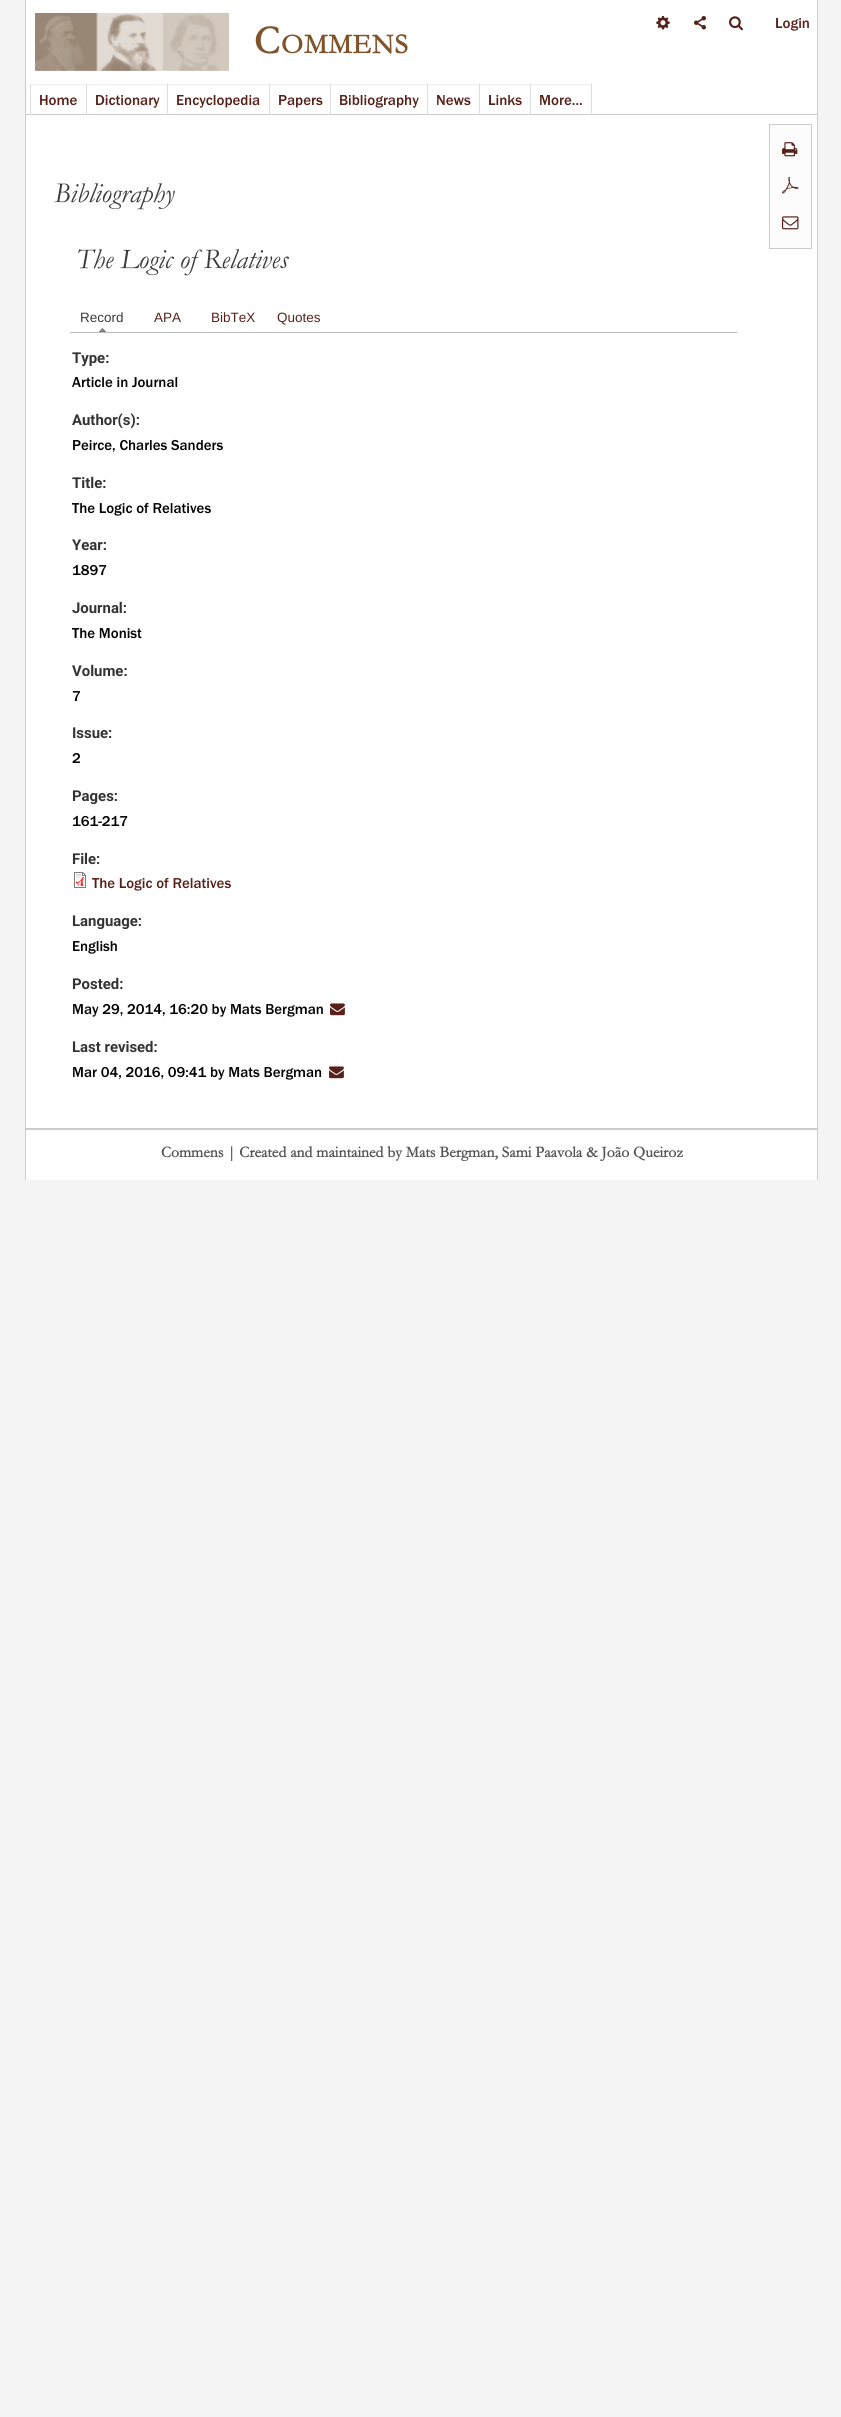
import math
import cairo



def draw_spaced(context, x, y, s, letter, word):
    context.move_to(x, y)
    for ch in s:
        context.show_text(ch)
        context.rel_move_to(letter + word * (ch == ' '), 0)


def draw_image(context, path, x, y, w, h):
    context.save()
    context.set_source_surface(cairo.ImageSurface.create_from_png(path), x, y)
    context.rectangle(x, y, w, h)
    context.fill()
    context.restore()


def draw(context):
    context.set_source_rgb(244 / 255, 244 / 255, 244 / 255)
    context.paint()
    context.set_source_rgb(204 / 255, 204 / 255, 204 / 255)
    context.rectangle(25, 114, 792, 1)
    context.fill()
    context.rectangle(25, 0, 1, 90)
    context.fill()
    context.rectangle(25, 84, 1, 31)
    context.fill()
    context.set_source_rgb(1, 1, 1)
    context.rectangle(26, 0, 791, 114)
    context.fill()
    draw_image(context, "images/1.png", 656, 16, 14, 14)
    draw_image(context, "images/2.png", 694, 16, 12, 14)
    draw_image(context, "images/3.png", 729, 16, 14, 15)
    context.set_source_rgb(238 / 255, 238 / 255, 238 / 255)
    context.rectangle(30, 84, 562, 1)
    context.fill()
    context.set_source_rgb(221 / 255, 221 / 255, 221 / 255)
    context.rectangle(30, 84, 1, 31)
    context.fill()
    context.rectangle(86, 84, 1, 31)
    context.fill()
    context.rectangle(167, 84, 1, 31)
    context.fill()
    context.rectangle(269, 84, 1, 31)
    context.fill()
    context.rectangle(330, 84, 1, 31)
    context.fill()
    context.rectangle(427, 84, 1, 31)
    context.fill()
    context.rectangle(479, 84, 1, 31)
    context.fill()
    context.rectangle(591, 84, 1, 31)
    context.fill()
    context.rectangle(530, 84, 1, 31)
    context.fill()
    draw_image(context, "images/4.png", 35, 13, 194, 58)
    context.set_source_rgb(1, 1, 1)
    context.rectangle(26, 115, 791, 1013)
    context.fill()
    context.set_source_rgb(204 / 255, 204 / 255, 204 / 255)
    context.rectangle(817, 0, 1, 1128)
    context.fill()
    context.rectangle(25, 115, 1, 1013)
    context.fill()
    context.set_source_rgb(252 / 255, 252 / 255, 252 / 255)
    context.rectangle(769.5, 124.5, 42, 124)
    context.fill_preserve()
    context.set_source_rgb(204 / 255, 204 / 255, 204 / 255)
    context.set_line_width(1)
    context.stroke()
    draw_image(context, "images/5.png", 782, 142, 16, 15)
    draw_image(context, "images/6.png", 782, 177, 17, 17)
    draw_image(context, "images/7.png", 782, 216, 17, 14)
    context.set_source_rgb(187 / 255, 187 / 255, 187 / 255)
    context.rectangle(70, 332, 667, 1)
    context.fill()
    draw_image(context, "images/8.png", 99, 327, 7, 5)
    draw_image(context, "images/9.png", 74, 872, 12, 16)
    draw_image(context, "images/10.png", 330, 1003, 15, 13)
    draw_image(context, "images/10.png", 329, 1066, 15, 13)
    context.set_source_rgb(1, 1, 1)
    context.rectangle(26, 1130, 791, 50)
    context.fill()
    context.set_source_rgb(204 / 255, 204 / 255, 204 / 255)
    context.rectangle(25, 1128, 793, 2)
    context.fill()
    context.rectangle(817, 1128, 1, 52)
    context.fill()
    context.rectangle(25, 1128, 1, 52)
    context.fill()
    context.select_font_face("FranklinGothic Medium")
    context.set_font_size(15)
    context.set_source_rgb(87 / 255, 33 / 255, 26 / 255)
    context.move_to(775, 28)
    context.show_text("Login")
    context.move_to(39, 105)
    context.show_text("Home")
    context.move_to(95, 105)
    context.show_text("Dictionary")
    context.move_to(176, 105)
    context.show_text("Encyclopedia")
    context.move_to(278, 105)
    context.show_text("Papers")
    context.move_to(339, 105)
    context.show_text("Bibliography")
    context.move_to(436, 105)
    context.show_text("News")
    context.move_to(488, 105)
    context.show_text("Links")
    context.move_to(539, 105)
    context.show_text("More...")
    context.select_font_face("Garamond", cairo.FontSlant.NORMAL, cairo.FontWeight.BOLD)
    context.set_font_size(40)
    context.set_source_rgb(128 / 255, 83 / 255, 43 / 255)
    draw_spaced(context, 254, 53, "C", 1, 0)
    context.set_font_size(28)
    draw_spaced(context, 281, 53, "OMMENS", 1, 0)
    context.select_font_face("Garamond", cairo.FontSlant.ITALIC)
    context.set_font_size(28.75)
    context.set_source_rgb(59 / 255, 59 / 255, 59 / 255)
    context.move_to(54, 202)
    context.show_text("Bibliography")
    context.move_to(76, 268)
    context.show_text("The Logic of Relatives")
    context.select_font_face("Liberation Sans")
    context.set_font_size(13.5)
    context.move_to(80, 322)
    context.show_text("Record")
    context.set_source_rgb(87 / 255, 33 / 255, 26 / 255)
    context.move_to(154, 322)
    context.show_text("APA")
    context.move_to(211, 322)
    context.show_text("BibTeX")
    context.move_to(277, 322)
    context.show_text("Quotes")
    context.select_font_face("Roboto", cairo.FontSlant.NORMAL, cairo.FontWeight.BOLD)
    context.set_font_size(14.9)
    context.set_source_rgb(51 / 255, 51 / 255, 51 / 255)
    context.move_to(72, 363)
    context.show_text("Type:")
    context.select_font_face("FranklinGothic Medium")
    context.set_source_rgb(0, 0, 0)
    context.move_to(72, 387)
    context.show_text("Article in Journal")
    context.select_font_face("Roboto", cairo.FontSlant.NORMAL, cairo.FontWeight.BOLD)
    context.set_source_rgb(51 / 255, 51 / 255, 51 / 255)
    context.move_to(72, 425)
    context.show_text("Author(s):")
    context.select_font_face("FranklinGothic Medium")
    context.set_source_rgb(0, 0, 0)
    context.move_to(72, 450)
    context.show_text("Peirce, Charles Sanders")
    context.select_font_face("Roboto", cairo.FontSlant.NORMAL, cairo.FontWeight.BOLD)
    context.set_source_rgb(51 / 255, 51 / 255, 51 / 255)
    context.move_to(72, 488)
    context.show_text("Title:")
    context.select_font_face("FranklinGothic Medium")
    context.set_source_rgb(0, 0, 0)
    context.move_to(72, 513)
    context.show_text("The Logic of Relatives")
    context.select_font_face("Roboto", cairo.FontSlant.NORMAL, cairo.FontWeight.BOLD)
    context.set_source_rgb(51 / 255, 51 / 255, 51 / 255)
    context.move_to(72, 550)
    context.show_text("Year:")
    context.select_font_face("FranklinGothic Medium")
    context.set_source_rgb(0, 0, 0)
    context.move_to(72, 575)
    context.show_text("1897")
    context.select_font_face("Roboto", cairo.FontSlant.NORMAL, cairo.FontWeight.BOLD)
    context.set_source_rgb(51 / 255, 51 / 255, 51 / 255)
    context.move_to(72, 613)
    context.show_text("Journal:")
    context.select_font_face("FranklinGothic Medium")
    context.set_source_rgb(0, 0, 0)
    context.move_to(72, 638)
    context.show_text("The Monist")
    context.select_font_face("Roboto", cairo.FontSlant.NORMAL, cairo.FontWeight.BOLD)
    context.set_source_rgb(51 / 255, 51 / 255, 51 / 255)
    context.move_to(72, 676)
    context.show_text("Volume:")
    context.select_font_face("FranklinGothic Medium")
    context.set_source_rgb(0, 0, 0)
    context.move_to(72, 701)
    context.show_text("7")
    context.select_font_face("Roboto", cairo.FontSlant.NORMAL, cairo.FontWeight.BOLD)
    context.set_source_rgb(51 / 255, 51 / 255, 51 / 255)
    context.move_to(72, 738)
    context.show_text("Issue:")
    context.select_font_face("FranklinGothic Medium")
    context.set_source_rgb(0, 0, 0)
    context.move_to(72, 763)
    context.show_text("2")
    context.select_font_face("Roboto", cairo.FontSlant.NORMAL, cairo.FontWeight.BOLD)
    context.set_source_rgb(51 / 255, 51 / 255, 51 / 255)
    context.move_to(72, 801)
    context.show_text("Pages:")
    context.select_font_face("FranklinGothic Medium")
    context.set_source_rgb(0, 0, 0)
    context.move_to(72, 826)
    context.show_text("161-217")
    context.select_font_face("Roboto", cairo.FontSlant.NORMAL, cairo.FontWeight.BOLD)
    context.set_source_rgb(51 / 255, 51 / 255, 51 / 255)
    context.move_to(72, 864)
    context.show_text("File:")
    context.select_font_face("FranklinGothic Medium")
    context.set_source_rgb(87 / 255, 33 / 255, 26 / 255)
    context.move_to(92, 888)
    context.show_text("The Logic of Relatives")
    context.select_font_face("Roboto", cairo.FontSlant.NORMAL, cairo.FontWeight.BOLD)
    context.set_source_rgb(51 / 255, 51 / 255, 51 / 255)
    context.move_to(72, 926)
    context.show_text("Language:")
    context.select_font_face("FranklinGothic Medium")
    context.set_source_rgb(0, 0, 0)
    context.move_to(72, 951)
    context.show_text("English")
    context.select_font_face("Roboto", cairo.FontSlant.NORMAL, cairo.FontWeight.BOLD)
    context.set_source_rgb(51 / 255, 51 / 255, 51 / 255)
    context.move_to(72, 989)
    context.show_text("Posted:")
    context.select_font_face("FranklinGothic Medium")
    context.set_source_rgb(0, 0, 0)
    context.move_to(72, 1014)
    context.show_text("May 29, 2014, 16:20 by Mats Bergman")
    context.select_font_face("Roboto", cairo.FontSlant.NORMAL, cairo.FontWeight.BOLD)
    context.set_source_rgb(51 / 255, 51 / 255, 51 / 255)
    context.move_to(72, 1052)
    context.show_text("Last revised:")
    context.select_font_face("FranklinGothic Medium")
    context.set_source_rgb(0, 0, 0)
    context.move_to(72, 1077)
    context.show_text("Mar 04, 2016, 09:41 by Mats Bergman")
    context.select_font_face("Garamond", cairo.FontSlant.NORMAL, cairo.FontWeight.BOLD)
    context.set_font_size(15.7)
    context.set_source_rgb(85 / 255, 85 / 255, 85 / 255)
    context.move_to(161, 1157)
    context.show_text("Commens | Created and maintained by Mats Bergman, Sami Paavola & João Queiroz")


surface = cairo.ImageSurface(cairo.Format.RGB24, 841, 2417)
context = cairo.Context(surface)
options = cairo.FontOptions()
options.set_hint_metrics(cairo.HintMetrics.OFF)
options.set_hint_style(cairo.HintStyle.NONE)
context.set_font_options(options)
context.set_miter_limit(4)
draw(context)
surface.write_to_png("out.png")
